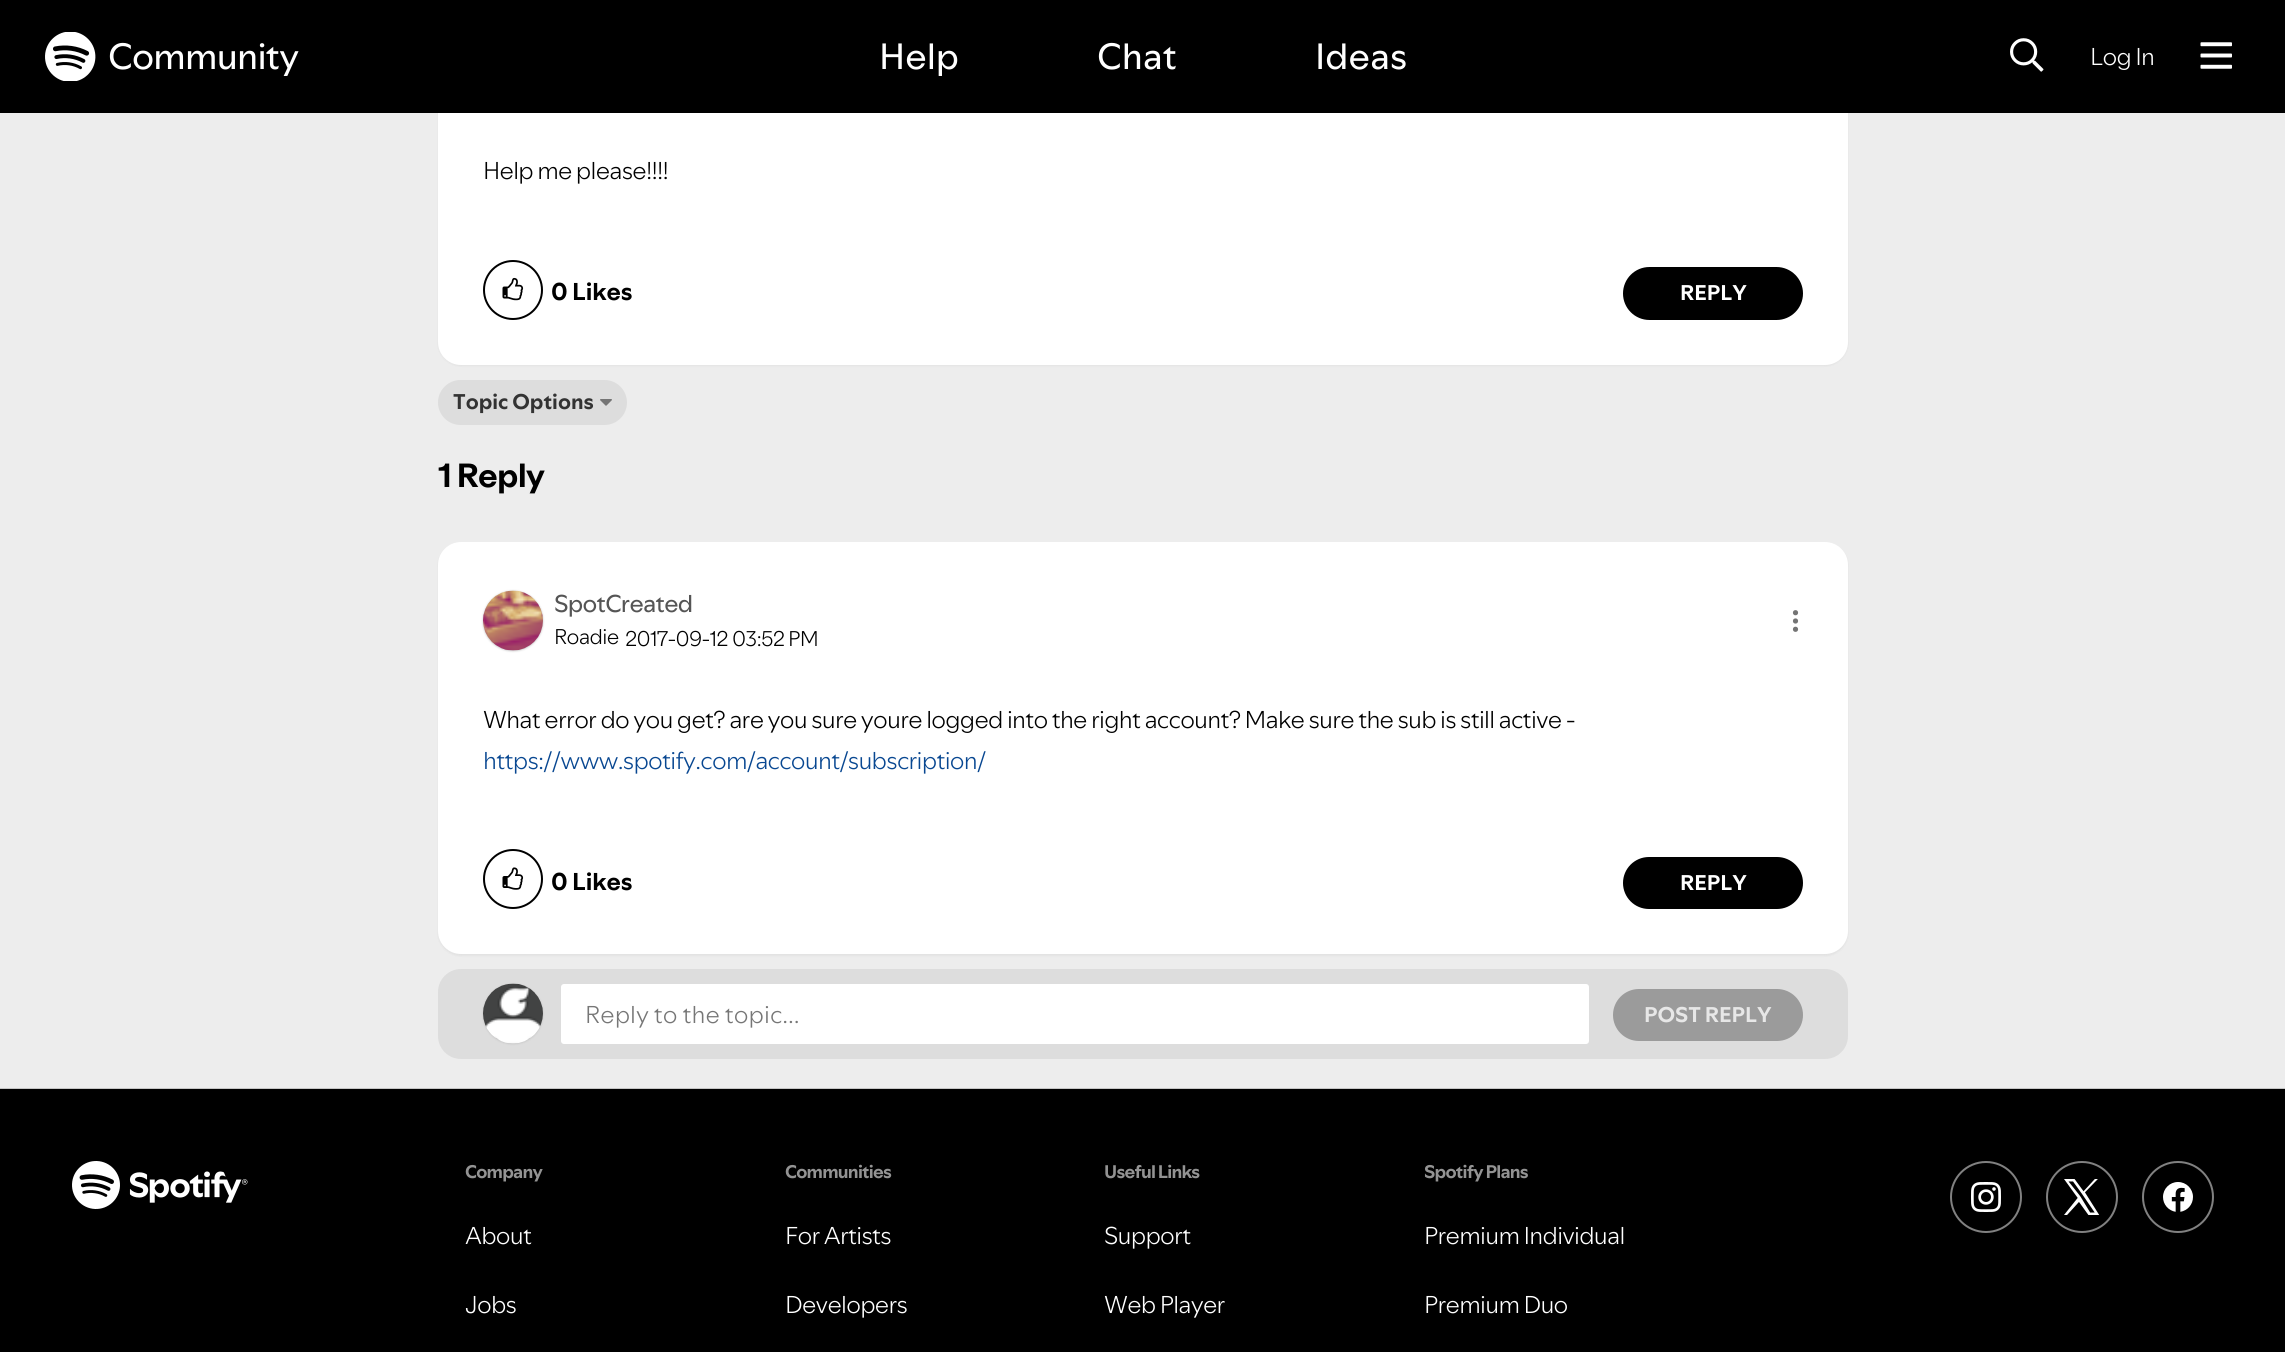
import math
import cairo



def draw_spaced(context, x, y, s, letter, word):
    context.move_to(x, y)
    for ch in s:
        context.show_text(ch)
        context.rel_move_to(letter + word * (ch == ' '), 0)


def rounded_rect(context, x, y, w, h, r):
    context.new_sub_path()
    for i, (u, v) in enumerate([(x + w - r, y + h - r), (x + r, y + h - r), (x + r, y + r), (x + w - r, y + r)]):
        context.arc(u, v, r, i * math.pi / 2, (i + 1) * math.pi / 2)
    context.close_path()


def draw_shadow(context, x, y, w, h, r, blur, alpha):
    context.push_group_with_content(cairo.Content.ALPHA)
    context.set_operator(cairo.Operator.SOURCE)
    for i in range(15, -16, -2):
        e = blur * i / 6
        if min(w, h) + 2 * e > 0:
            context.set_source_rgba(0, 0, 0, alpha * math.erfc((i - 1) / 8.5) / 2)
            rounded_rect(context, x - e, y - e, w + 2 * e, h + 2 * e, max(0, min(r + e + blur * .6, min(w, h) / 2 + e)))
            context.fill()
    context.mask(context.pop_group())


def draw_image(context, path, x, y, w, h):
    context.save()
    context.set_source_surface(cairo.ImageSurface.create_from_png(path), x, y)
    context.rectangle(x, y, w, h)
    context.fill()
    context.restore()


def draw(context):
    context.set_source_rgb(237 / 255, 237 / 255, 237 / 255)
    context.paint()
    context.set_source_rgb(0, 0, 0)
    draw_shadow(context, 438, -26, 1410, 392, 23, 1, 0.05)
    context.set_source_rgb(1, 1, 1)
    rounded_rect(context, 438, -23, 1410, 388, 23)
    context.fill()
    context.set_source_rgb(0, 0, 0)
    context.rectangle(0, 0, 2285, 113)
    context.fill()
    draw_image(context, "images/1.png", 45, 32, 51, 49)
    draw_image(context, "images/2.png", 2010, 38, 34, 34)
    draw_image(context, "images/3.png", 2200, 42, 32, 27)
    context.arc(513, 290, 29, 0, 2 * math.pi)
    context.stroke()
    draw_image(context, "images/4.png", 502, 277, 22, 24)
    rounded_rect(context, 1624, 268, 178, 51, 25.5)
    context.fill_preserve()
    context.stroke()
    context.set_source_rgb(221 / 255, 221 / 255, 221 / 255)
    rounded_rect(context, 438, 380, 189, 45, 22.5)
    context.fill()
    draw_image(context, "images/5.png", 600, 399, 12, 7)
    context.set_source_rgb(0, 0, 0)
    draw_shadow(context, 438, 543, 1410, 413, 23, 1, 0.05)
    context.set_source_rgb(1, 1, 1)
    rounded_rect(context, 438, 542, 1410, 412, 23)
    context.fill()
    context.set_source_rgb(196 / 255, 196 / 255, 196 / 255)
    draw_shadow(context, 483, 591, 60, 60, 30, 1, 1)
    draw_image(context, "images/6.png", 483, 590, 60, 61)
    context.set_source_rgb(116 / 255, 116 / 255, 116 / 255)
    context.arc(1795.5, 612.7, 2.6, 0, 2 * math.pi)
    context.fill()
    context.arc(1795.5, 621, 2.6, 0, 2 * math.pi)
    context.fill()
    context.arc(1795.5, 629.3, 2.6, 0, 2 * math.pi)
    context.fill()
    context.arc(513, 879, 29, 0, 2 * math.pi)
    context.set_source_rgb(0, 0, 0)
    context.stroke()
    draw_image(context, "images/7.png", 502, 867, 22, 23)
    rounded_rect(context, 1624, 858, 178, 50, 25)
    context.fill_preserve()
    context.stroke()
    context.set_source_rgb(221 / 255, 221 / 255, 221 / 255)
    rounded_rect(context, 438, 969, 1410, 90, 23)
    context.fill()
    context.set_source_rgb(196 / 255, 196 / 255, 196 / 255)
    draw_shadow(context, 483, 984, 60, 60, 30, 1, 1)
    draw_image(context, "images/8.png", 483, 983, 60, 61)
    context.set_source_rgb(1, 1, 1)
    rounded_rect(context, 561, 984, 1028, 60, 3)
    context.fill()
    context.set_source_rgb(155 / 255, 155 / 255, 155 / 255)
    rounded_rect(context, 1614, 990, 188, 50, 25)
    context.fill_preserve()
    context.stroke()
    context.set_source_rgb(196 / 255, 196 / 255, 196 / 255)
    context.rectangle(0, 1088, 2285, 1)
    context.fill()
    context.set_source_rgb(0, 0, 0)
    context.rectangle(0, 1089, 2285, 263)
    context.fill()
    draw_image(context, "images/9.png", 72, 1161, 176, 48)
    context.arc(1986, 1197, 35, 0, 2 * math.pi)
    context.set_source_rgb(129 / 255, 129 / 255, 129 / 255)
    context.stroke()
    draw_image(context, "images/10.png", 1971, 1182, 30, 30)
    context.arc(2082, 1197, 35, 0, 2 * math.pi)
    context.stroke()
    draw_image(context, "images/11.png", 2064, 1179, 36, 36)
    context.arc(2178, 1197, 35, 0, 2 * math.pi)
    context.stroke()
    draw_image(context, "images/12.png", 2163, 1182, 30, 30)
    context.select_font_face("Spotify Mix")
    context.set_font_size(36)
    context.set_source_rgb(1, 1, 1)
    draw_spaced(context, 108, 69, "Community", -0.75, 0)
    context.move_to(879, 69)
    context.show_text("Help")
    context.move_to(1097, 69)
    context.show_text("Chat")
    context.move_to(1315, 69)
    context.show_text("Ideas")
    context.select_font_face("Spotify Mix Light")
    context.set_font_size(24)
    draw_spaced(context, 2090, 65, "Log In", -0.75, 0)
    context.set_source_rgb(0, 0, 0)
    draw_spaced(context, 483, 179, "Help me please!!!!", -0.75, 0)
    context.select_font_face("Spotify Mix", cairo.FontSlant.NORMAL, cairo.FontWeight.BOLD)
    context.move_to(551, 300)
    context.show_text("0 Likes")
    context.set_font_size(21)
    context.set_source_rgb(1, 1, 1)
    context.move_to(1680, 300)
    context.show_text("REPLY")
    context.set_source_rgb(51 / 255, 51 / 255, 51 / 255)
    context.move_to(453, 409)
    context.show_text("Topic Options")
    context.set_font_size(33)
    context.set_source_rgb(0, 0, 0)
    draw_spaced(context, 438, 487, "1 Reply", -0.75, 0)
    context.select_font_face("Spotify Mix")
    context.set_font_size(24)
    context.set_source_rgb(85 / 255, 85 / 255, 85 / 255)
    draw_spaced(context, 554, 612, "SpotCreated", -0.75, 0)
    context.select_font_face("Spotify Mix Light")
    context.set_font_size(21)
    context.set_source_rgb(0, 0, 0)
    draw_spaced(context, 554, 644, "Roadie", -0.75, 0)
    draw_spaced(context, 625, 646, "2017-09-12", -0.75, 0)
    draw_spaced(context, 732, 646, "03:52 PM", -0.75, 0)
    context.set_font_size(24)
    draw_spaced(context, 483, 728, "What error do you get? are you sure youre logged into the right account? Make sure the sub is still active -", -0.75, 0)
    context.set_source_rgb(8 / 255, 71 / 255, 145 / 255)
    draw_spaced(context, 483, 769, "https://www.spotify.com/account/subscription/", -0.75, 0)
    context.select_font_face("Spotify Mix", cairo.FontSlant.NORMAL, cairo.FontWeight.BOLD)
    context.set_source_rgb(0, 0, 0)
    context.move_to(551, 890)
    context.show_text("0 Likes")
    context.set_font_size(21)
    context.set_source_rgb(1, 1, 1)
    context.move_to(1680, 890)
    context.show_text("REPLY")
    context.select_font_face("Spotify Mix Light")
    context.set_font_size(24)
    context.set_source_rgb(118 / 255, 118 / 255, 118 / 255)
    context.move_to(585, 1023)
    context.show_text("Reply to the topic...")
    context.select_font_face("Spotify Mix", cairo.FontSlant.NORMAL, cairo.FontWeight.BOLD)
    context.set_font_size(21)
    context.set_source_rgb(231 / 255, 231 / 255, 231 / 255)
    context.move_to(1644, 1022)
    context.show_text("POST REPLY")
    context.set_font_size(18)
    context.set_source_rgb(147 / 255, 147 / 255, 147 / 255)
    draw_spaced(context, 465, 1178, "Company", -0.75, 0)
    context.select_font_face("Spotify Mix Light")
    context.set_font_size(24)
    context.set_source_rgb(1, 1, 1)
    draw_spaced(context, 465, 1244, "About", -0.75, 0)
    draw_spaced(context, 465, 1313, "Jobs", -0.75, 0)
    context.select_font_face("Spotify Mix", cairo.FontSlant.NORMAL, cairo.FontWeight.BOLD)
    context.set_font_size(18)
    context.set_source_rgb(147 / 255, 147 / 255, 147 / 255)
    draw_spaced(context, 785, 1178, "Communities", -0.75, 0)
    context.select_font_face("Spotify Mix Light")
    context.set_font_size(24)
    context.set_source_rgb(1, 1, 1)
    draw_spaced(context, 785, 1244, "For Artists", -0.75, 0)
    draw_spaced(context, 785, 1313, "Developers", -0.75, 0)
    context.select_font_face("Spotify Mix", cairo.FontSlant.NORMAL, cairo.FontWeight.BOLD)
    context.set_font_size(18)
    context.set_source_rgb(147 / 255, 147 / 255, 147 / 255)
    draw_spaced(context, 1104, 1178, "Useful Links", -0.75, 0)
    context.select_font_face("Spotify Mix Light")
    context.set_font_size(24)
    context.set_source_rgb(1, 1, 1)
    draw_spaced(context, 1104, 1244, "Support", -0.75, 0)
    draw_spaced(context, 1104, 1313, "Web Player", -0.75, 0)
    context.select_font_face("Spotify Mix", cairo.FontSlant.NORMAL, cairo.FontWeight.BOLD)
    context.set_font_size(18)
    context.set_source_rgb(147 / 255, 147 / 255, 147 / 255)
    draw_spaced(context, 1424, 1178, "Spotify Plans", -0.75, 0)
    context.select_font_face("Spotify Mix Light")
    context.set_font_size(24)
    context.set_source_rgb(1, 1, 1)
    draw_spaced(context, 1424, 1244, "Premium Individual", -0.75, 0)
    draw_spaced(context, 1424, 1313, "Premium Duo", -0.75, 0)


surface = cairo.ImageSurface(cairo.Format.RGB24, 2285, 1352)
context = cairo.Context(surface)
options = cairo.FontOptions()
options.set_hint_metrics(cairo.HintMetrics.OFF)
options.set_hint_style(cairo.HintStyle.NONE)
context.set_font_options(options)
context.set_miter_limit(4)
draw(context)
surface.write_to_png("out.png")
